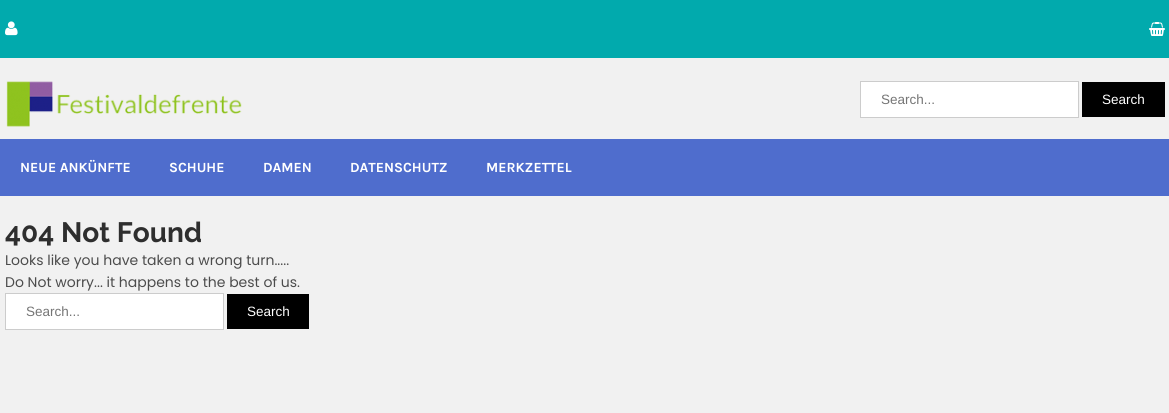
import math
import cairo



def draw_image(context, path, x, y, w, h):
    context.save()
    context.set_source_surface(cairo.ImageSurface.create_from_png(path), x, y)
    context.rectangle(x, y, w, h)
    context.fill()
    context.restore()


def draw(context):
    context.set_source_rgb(241 / 255, 241 / 255, 241 / 255)
    context.paint()
    context.set_source_rgb(1 / 255, 170 / 255, 173 / 255)
    context.rectangle(0, 0, 1169, 58)
    context.fill()
    draw_image(context, "images/1.png", 5, 21, 13, 15)
    draw_image(context, "images/2.png", 1149, 22, 16, 14)
    draw_image(context, "images/3.png", 6, 81, 236, 46)
    context.set_source_rgb(1, 1, 1)
    context.rectangle(860.5, 81.5, 218, 36)
    context.fill_preserve()
    context.set_source_rgb(204 / 255, 204 / 255, 204 / 255)
    context.set_line_width(1)
    context.stroke()
    context.set_source_rgb(0, 0, 0)
    context.rectangle(1082, 82, 83, 35)
    context.fill()
    context.set_source_rgb(79 / 255, 109 / 255, 205 / 255)
    context.rectangle(0, 139, 1169, 57)
    context.fill()
    context.set_source_rgb(1, 1, 1)
    context.rectangle(5.5, 293.5, 218, 36)
    context.fill_preserve()
    context.set_source_rgb(204 / 255, 204 / 255, 204 / 255)
    context.stroke()
    context.set_source_rgb(0, 0, 0)
    context.rectangle(227, 294, 82, 35)
    context.fill()
    context.select_font_face("Liberation Sans")
    context.set_font_size(13.5)
    context.set_source_rgb(117 / 255, 117 / 255, 117 / 255)
    context.move_to(881, 104)
    context.show_text("Search...")
    context.set_source_rgb(1, 1, 1)
    context.move_to(1102, 104)
    context.show_text("Search")
    context.select_font_face("Karla", cairo.FontSlant.NORMAL, cairo.FontWeight.BOLD)
    context.set_font_size(14)
    context.move_to(20, 172)
    context.show_text("NEUE ANKÜNFTE")
    context.move_to(169, 172)
    context.show_text("SCHUHE")
    context.move_to(263, 172)
    context.show_text("DAMEN")
    context.move_to(350, 172)
    context.show_text("DATENSCHUTZ")
    context.move_to(486, 172)
    context.show_text("MERKZETTEL")
    context.select_font_face("Raleway", cairo.FontSlant.NORMAL, cairo.FontWeight.BOLD)
    context.set_font_size(28)
    context.set_source_rgb(46 / 255, 46 / 255, 46 / 255)
    context.move_to(5, 242)
    context.show_text("404 Not Found")
    context.select_font_face("Poppins")
    context.set_font_size(14)
    context.set_source_rgb(76 / 255, 76 / 255, 76 / 255)
    context.move_to(5, 265)
    context.show_text("Looks like you have taken a wrong turn.....")
    context.move_to(5, 287)
    context.show_text("Do Not worry... it happens to the best of us.")
    context.select_font_face("Liberation Sans")
    context.set_font_size(13.5)
    context.set_source_rgb(117 / 255, 117 / 255, 117 / 255)
    context.move_to(26, 316)
    context.show_text("Search...")
    context.set_source_rgb(1, 1, 1)
    context.move_to(247, 316)
    context.show_text("Search")


surface = cairo.ImageSurface(cairo.Format.RGB24, 1169, 413)
context = cairo.Context(surface)
options = cairo.FontOptions()
options.set_hint_metrics(cairo.HintMetrics.OFF)
options.set_hint_style(cairo.HintStyle.NONE)
context.set_font_options(options)
context.set_miter_limit(4)
draw(context)
surface.write_to_png("out.png")
